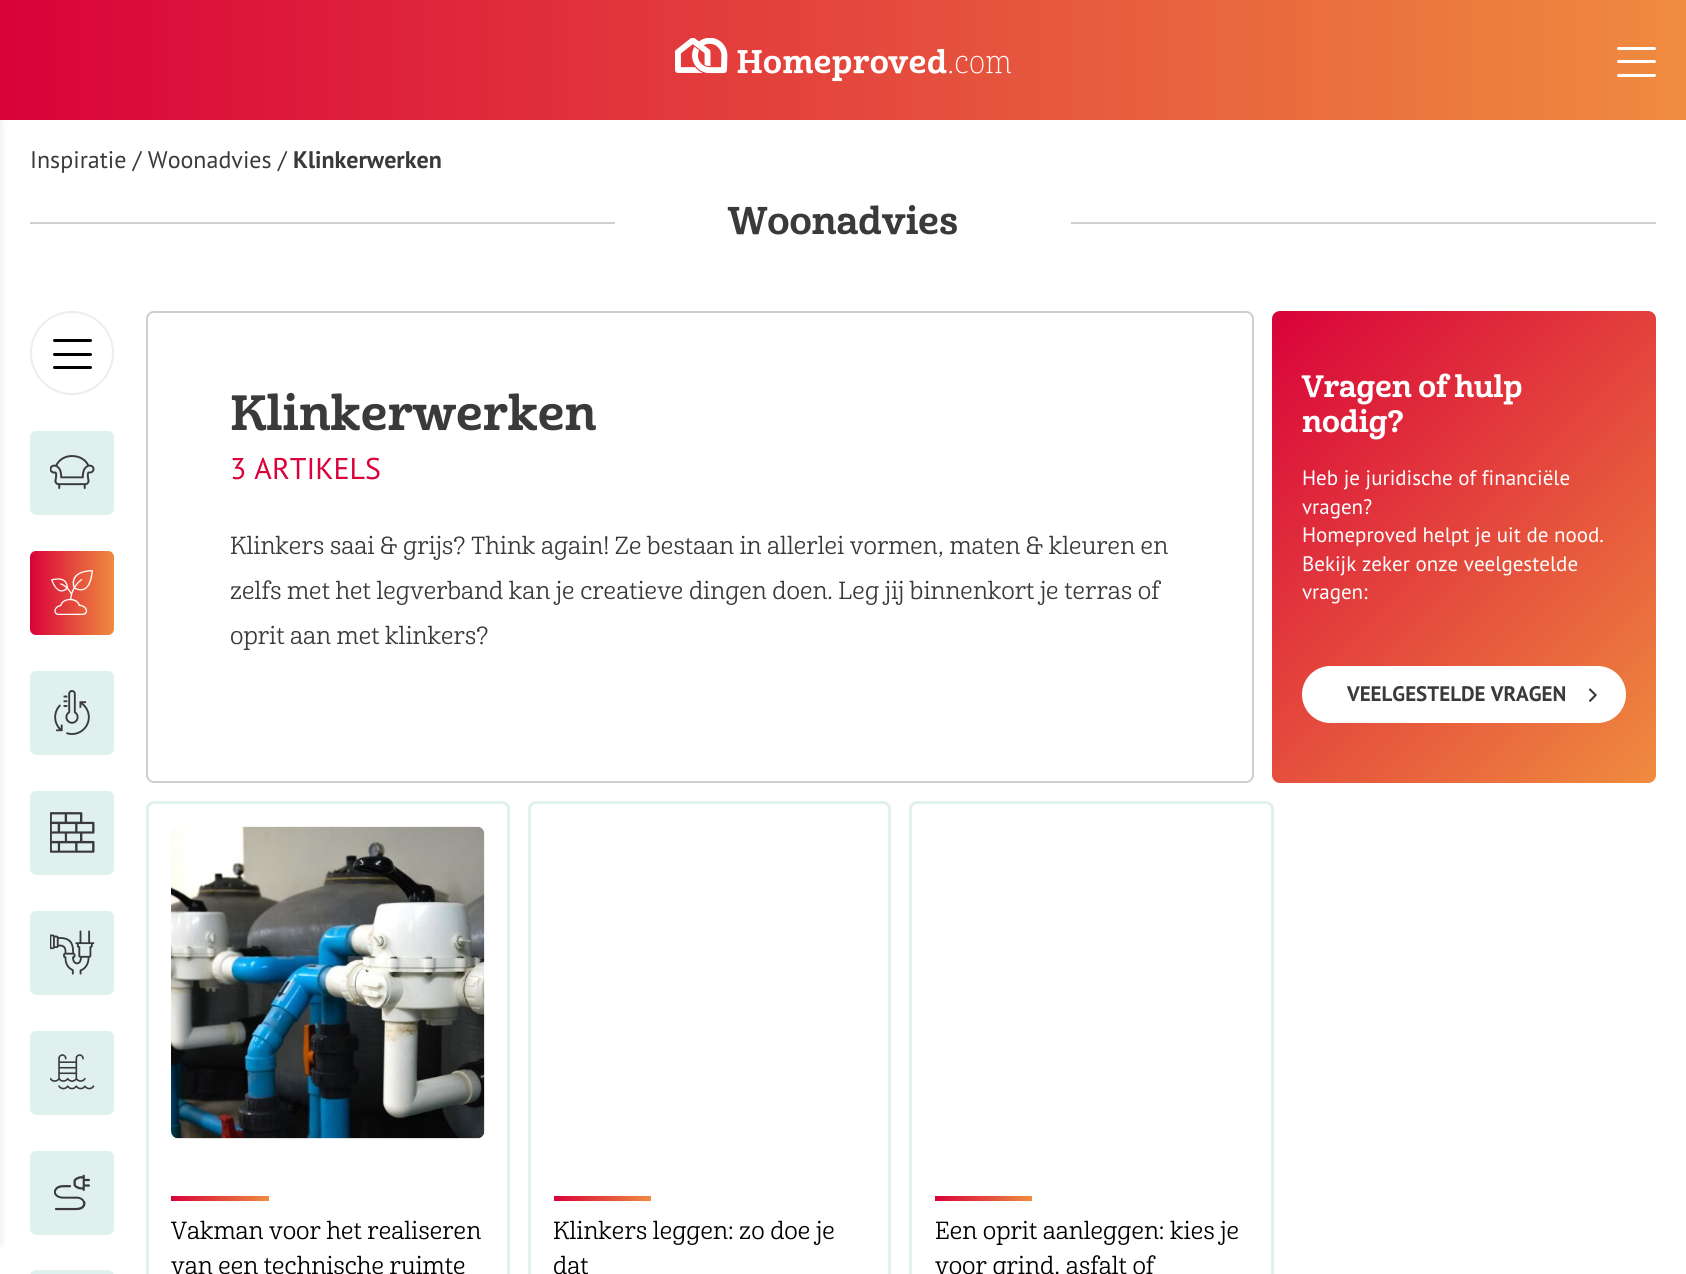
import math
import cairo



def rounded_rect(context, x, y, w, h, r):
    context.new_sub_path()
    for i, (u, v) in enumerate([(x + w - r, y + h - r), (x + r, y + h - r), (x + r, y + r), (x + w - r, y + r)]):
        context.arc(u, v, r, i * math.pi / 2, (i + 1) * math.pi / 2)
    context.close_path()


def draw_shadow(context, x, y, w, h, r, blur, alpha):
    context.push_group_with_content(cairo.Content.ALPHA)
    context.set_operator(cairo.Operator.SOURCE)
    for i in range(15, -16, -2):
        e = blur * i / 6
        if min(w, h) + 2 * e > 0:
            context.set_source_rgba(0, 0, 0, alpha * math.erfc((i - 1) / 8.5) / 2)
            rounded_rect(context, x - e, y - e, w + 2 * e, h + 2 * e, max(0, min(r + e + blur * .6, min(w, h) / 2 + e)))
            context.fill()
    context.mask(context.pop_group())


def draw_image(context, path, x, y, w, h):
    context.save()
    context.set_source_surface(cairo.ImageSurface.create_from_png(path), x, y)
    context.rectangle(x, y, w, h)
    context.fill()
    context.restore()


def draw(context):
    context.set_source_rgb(1, 1, 1)
    context.paint()
    gradient = cairo.LinearGradient(0, 60, 1686, 60)
    gradient.add_color_stop_rgba(0, 217 / 255, 2 / 255, 58 / 255, 1)
    gradient.add_color_stop_rgba(1, 239 / 255, 140 / 255, 63 / 255, 1)
    context.set_source(gradient)
    context.rectangle(0, 0, 1686, 120)
    context.fill()
    draw_image(context, "images/1.png", 675, 38, 336, 44)
    context.set_source_rgb(1, 1, 1)
    rounded_rect(context, 1617, 47, 39, 3, 1.5)
    context.fill()
    rounded_rect(context, 1617, 60, 39, 3, 1.5)
    context.fill()
    rounded_rect(context, 1617, 74, 39, 3, 1.5)
    context.fill()
    context.set_source_rgb(208 / 255, 208 / 255, 208 / 255)
    context.rectangle(30, 222, 585, 2)
    context.fill()
    context.rectangle(1071, 222, 585, 2)
    context.fill()
    context.set_source_rgb(0, 0, 0)
    draw_shadow(context, -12, 120, 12, 1125, 0, 4, 0.1)
    context.arc(72, 353, 41, 0, 2 * math.pi)
    context.set_source_rgb(237 / 255, 237 / 255, 237 / 255)
    context.stroke()
    context.set_source_rgb(0, 0, 0)
    rounded_rect(context, 53, 339, 39, 3, 1.5)
    context.fill()
    rounded_rect(context, 53, 353, 39, 3, 1.5)
    context.fill()
    rounded_rect(context, 53, 366, 39, 3, 1.5)
    context.fill()
    context.set_source_rgb(223 / 255, 240 / 255, 239 / 255)
    rounded_rect(context, 30, 431, 84, 84, 6)
    context.fill()
    draw_image(context, "images/2.png", 50, 455, 45, 34)
    gradient = cairo.LinearGradient(30, 593, 114, 593)
    gradient.add_color_stop_rgba(0, 217 / 255, 2 / 255, 58 / 255, 1)
    gradient.add_color_stop_rgba(1, 239 / 255, 140 / 255, 63 / 255, 1)
    context.set_source(gradient)
    rounded_rect(context, 30, 551, 84, 84, 6)
    context.fill()
    draw_image(context, "images/3.png", 51, 570, 42, 45)
    context.set_source_rgb(223 / 255, 240 / 255, 239 / 255)
    rounded_rect(context, 30, 671, 84, 84, 6)
    context.fill()
    draw_image(context, "images/4.png", 54, 690, 36, 45)
    rounded_rect(context, 30, 791, 84, 84, 6)
    context.fill()
    draw_image(context, "images/5.png", 50, 812, 45, 41)
    rounded_rect(context, 30, 911, 84, 84, 6)
    context.fill()
    draw_image(context, "images/6.png", 50, 930, 45, 45)
    rounded_rect(context, 30, 1031, 84, 84, 6)
    context.fill()
    draw_image(context, "images/7.png", 50, 1054, 45, 36)
    rounded_rect(context, 30, 1151, 84, 84, 6)
    context.fill()
    draw_image(context, "images/8.png", 53, 1174, 37, 37)
    context.new_path()
    context.move_to(114, 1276)
    context.line_to(114, 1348)
    context.curve_to(114, 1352, 111, 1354, 108, 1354)
    context.line_to(36, 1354)
    context.curve_to(33, 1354, 30, 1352, 30, 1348)
    context.line_to(30, 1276)
    context.curve_to(30, 1273, 33, 1270, 36, 1270)
    context.line_to(108, 1270)
    context.curve_to(111, 1270, 114, 1273, 114, 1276)
    context.close_path()
    context.fill()
    rounded_rect(context, 147, 312, 1106, 470, 7)
    context.set_source_rgb(206 / 255, 206 / 255, 206 / 255)
    context.stroke()
    gradient = cairo.LinearGradient(1250, 333, 1678, 761)
    gradient.add_color_stop_rgba(0, 217 / 255, 2 / 255, 58 / 255, 1)
    gradient.add_color_stop_rgba(1, 239 / 255, 140 / 255, 63 / 255, 1)
    context.set_source(gradient)
    rounded_rect(context, 1272, 311, 384, 472, 8)
    context.fill()
    context.set_source_rgb(1, 1, 1)
    rounded_rect(context, 1302, 666, 324, 57, 28.5)
    context.fill()
    draw_image(context, "images/9.png", 1589, 688, 8, 14)
    rounded_rect(context, 147.5, 802.5, 361, 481, 6.5)
    context.set_source_rgb(223 / 255, 240 / 255, 239 / 255)
    context.set_line_width(3)
    context.stroke()
    draw_image(context, "images/10.png", 171, 826, 314, 313)
    gradient = cairo.LinearGradient(171, 1198, 269, 1198)
    gradient.add_color_stop_rgba(0, 217 / 255, 2 / 255, 58 / 255, 1)
    gradient.add_color_stop_rgba(1, 239 / 255, 140 / 255, 63 / 255, 1)
    context.set_source(gradient)
    context.rectangle(171, 1196, 98, 5)
    context.fill()
    rounded_rect(context, 529.5, 802.5, 360, 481, 6.5)
    context.set_source_rgb(223 / 255, 240 / 255, 239 / 255)
    context.stroke()
    gradient = cairo.LinearGradient(554, 1198, 651, 1198)
    gradient.add_color_stop_rgba(0, 217 / 255, 2 / 255, 58 / 255, 1)
    gradient.add_color_stop_rgba(1, 239 / 255, 140 / 255, 63 / 255, 1)
    context.set_source(gradient)
    context.rectangle(554, 1196, 97, 5)
    context.fill()
    rounded_rect(context, 910.5, 802.5, 362, 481, 6.5)
    context.set_source_rgb(223 / 255, 240 / 255, 239 / 255)
    context.stroke()
    gradient = cairo.LinearGradient(935, 1198, 1032, 1198)
    gradient.add_color_stop_rgba(0, 217 / 255, 2 / 255, 58 / 255, 1)
    gradient.add_color_stop_rgba(1, 239 / 255, 140 / 255, 63 / 255, 1)
    context.set_source(gradient)
    context.rectangle(935, 1196, 97, 5)
    context.fill()
    context.select_font_face("PT Sans")
    context.set_font_size(24)
    context.set_source_rgb(58 / 255, 58 / 255, 58 / 255)
    context.move_to(30, 168)
    context.show_text("Inspiratie / Woonadvies /")
    context.select_font_face("PT Sans", cairo.FontSlant.NORMAL, cairo.FontWeight.BOLD)
    context.move_to(293, 168)
    context.show_text("Klinkerwerken")
    context.select_font_face("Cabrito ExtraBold")
    context.set_font_size(37.5)
    context.move_to(728, 234)
    context.show_text("Woonadvies")
    context.set_font_size(48)
    context.move_to(230, 430)
    context.show_text("Klinkerwerken")
    context.select_font_face("PT Sans")
    context.set_font_size(30)
    context.set_source_rgb(217 / 255, 2 / 255, 58 / 255)
    context.move_to(230, 479)
    context.show_text("3 ARTIKELS")
    context.select_font_face("Cabrito Medium")
    context.set_font_size(24)
    context.set_source_rgb(58 / 255, 58 / 255, 58 / 255)
    context.move_to(230, 554)
    context.show_text("Klinkers saai & grijs? Think again! Ze bestaan in allerlei vormen, maten & kleuren en")
    context.move_to(230, 599)
    context.show_text("zelfs met het legverband kan je creatieve dingen doen. Leg jij binnenkort je terras of")
    context.move_to(230, 644)
    context.show_text("oprit aan met klinkers?")
    context.select_font_face("Cabrito ExtraBold")
    context.set_font_size(30)
    context.set_source_rgb(1, 1, 1)
    context.move_to(1302, 397)
    context.show_text("Vragen of hulp")
    context.move_to(1302, 432)
    context.show_text("nodig?")
    context.select_font_face("PT Sans")
    context.set_font_size(21)
    context.move_to(1302, 485)
    context.show_text("Heb je juridische of financiële")
    context.move_to(1302, 514)
    context.show_text("vragen?")
    context.move_to(1302, 542)
    context.show_text("Homeproved helpt je uit de nood.")
    context.move_to(1302, 571)
    context.show_text("Bekijk zeker onze veelgestelde")
    context.move_to(1302, 599)
    context.show_text("vragen:")
    context.select_font_face("PT Sans", cairo.FontSlant.NORMAL, cairo.FontWeight.BOLD)
    context.set_source_rgb(58 / 255, 58 / 255, 58 / 255)
    context.move_to(1347, 701)
    context.show_text("VEELGESTELDE VRAGEN")
    context.select_font_face("Cabrito Medium")
    context.set_font_size(24)
    context.set_source_rgb(0, 0, 0)
    context.move_to(171, 1239)
    context.show_text("Vakman voor het realiseren")
    context.move_to(171, 1274)
    context.show_text("van een technische ruimte")
    context.move_to(553, 1239)
    context.show_text("Klinkers leggen: zo doe je")
    context.move_to(553, 1274)
    context.show_text("dat")
    context.move_to(935, 1239)
    context.show_text("Een oprit aanleggen: kies je")
    context.move_to(935, 1274)
    context.show_text("voor grind, asfalt of")


surface = cairo.ImageSurface(cairo.Format.RGB24, 1686, 1274)
context = cairo.Context(surface)
options = cairo.FontOptions()
options.set_hint_metrics(cairo.HintMetrics.OFF)
options.set_hint_style(cairo.HintStyle.NONE)
context.set_font_options(options)
context.set_miter_limit(4)
draw(context)
surface.write_to_png("out.png")
